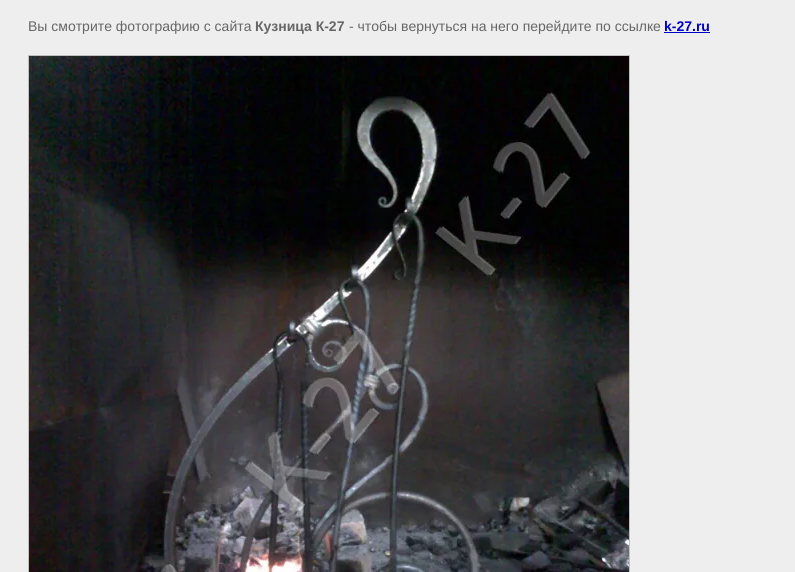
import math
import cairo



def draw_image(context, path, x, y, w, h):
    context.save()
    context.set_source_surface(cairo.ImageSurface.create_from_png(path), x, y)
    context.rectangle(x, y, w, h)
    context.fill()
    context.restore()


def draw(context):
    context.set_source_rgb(238 / 255, 238 / 255, 238 / 255)
    context.paint()
    context.set_source_rgb(0, 0, 204 / 255)
    context.rectangle(664, 32, 46, 1)
    context.fill()
    context.rectangle(28.5, 55.5, 601, 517)
    context.set_source_rgb(192 / 255, 192 / 255, 192 / 255)
    context.set_line_width(1)
    context.stroke()
    draw_image(context, "images/1.png", 29, 56, 600, 516)
    context.select_font_face("Liberation Sans")
    context.set_font_size(14)
    context.set_source_rgb(102 / 255, 102 / 255, 102 / 255)
    context.move_to(28, 31)
    context.show_text("Вы смотрите фотографию с сайта")
    context.select_font_face("Liberation Sans", cairo.FontSlant.NORMAL, cairo.FontWeight.BOLD)
    context.move_to(255, 31)
    context.show_text("Кузница К-27")
    context.select_font_face("Liberation Sans")
    context.move_to(349, 31)
    context.show_text("- чтобы вернуться на него перейдите по ссылке")
    context.select_font_face("Liberation Sans", cairo.FontSlant.NORMAL, cairo.FontWeight.BOLD)
    context.set_source_rgb(0, 0, 204 / 255)
    context.move_to(664, 31)
    context.show_text("k-27.ru")


surface = cairo.ImageSurface(cairo.Format.RGB24, 795, 572)
context = cairo.Context(surface)
options = cairo.FontOptions()
options.set_hint_metrics(cairo.HintMetrics.OFF)
options.set_hint_style(cairo.HintStyle.NONE)
context.set_font_options(options)
context.set_miter_limit(4)
draw(context)
surface.write_to_png("out.png")
